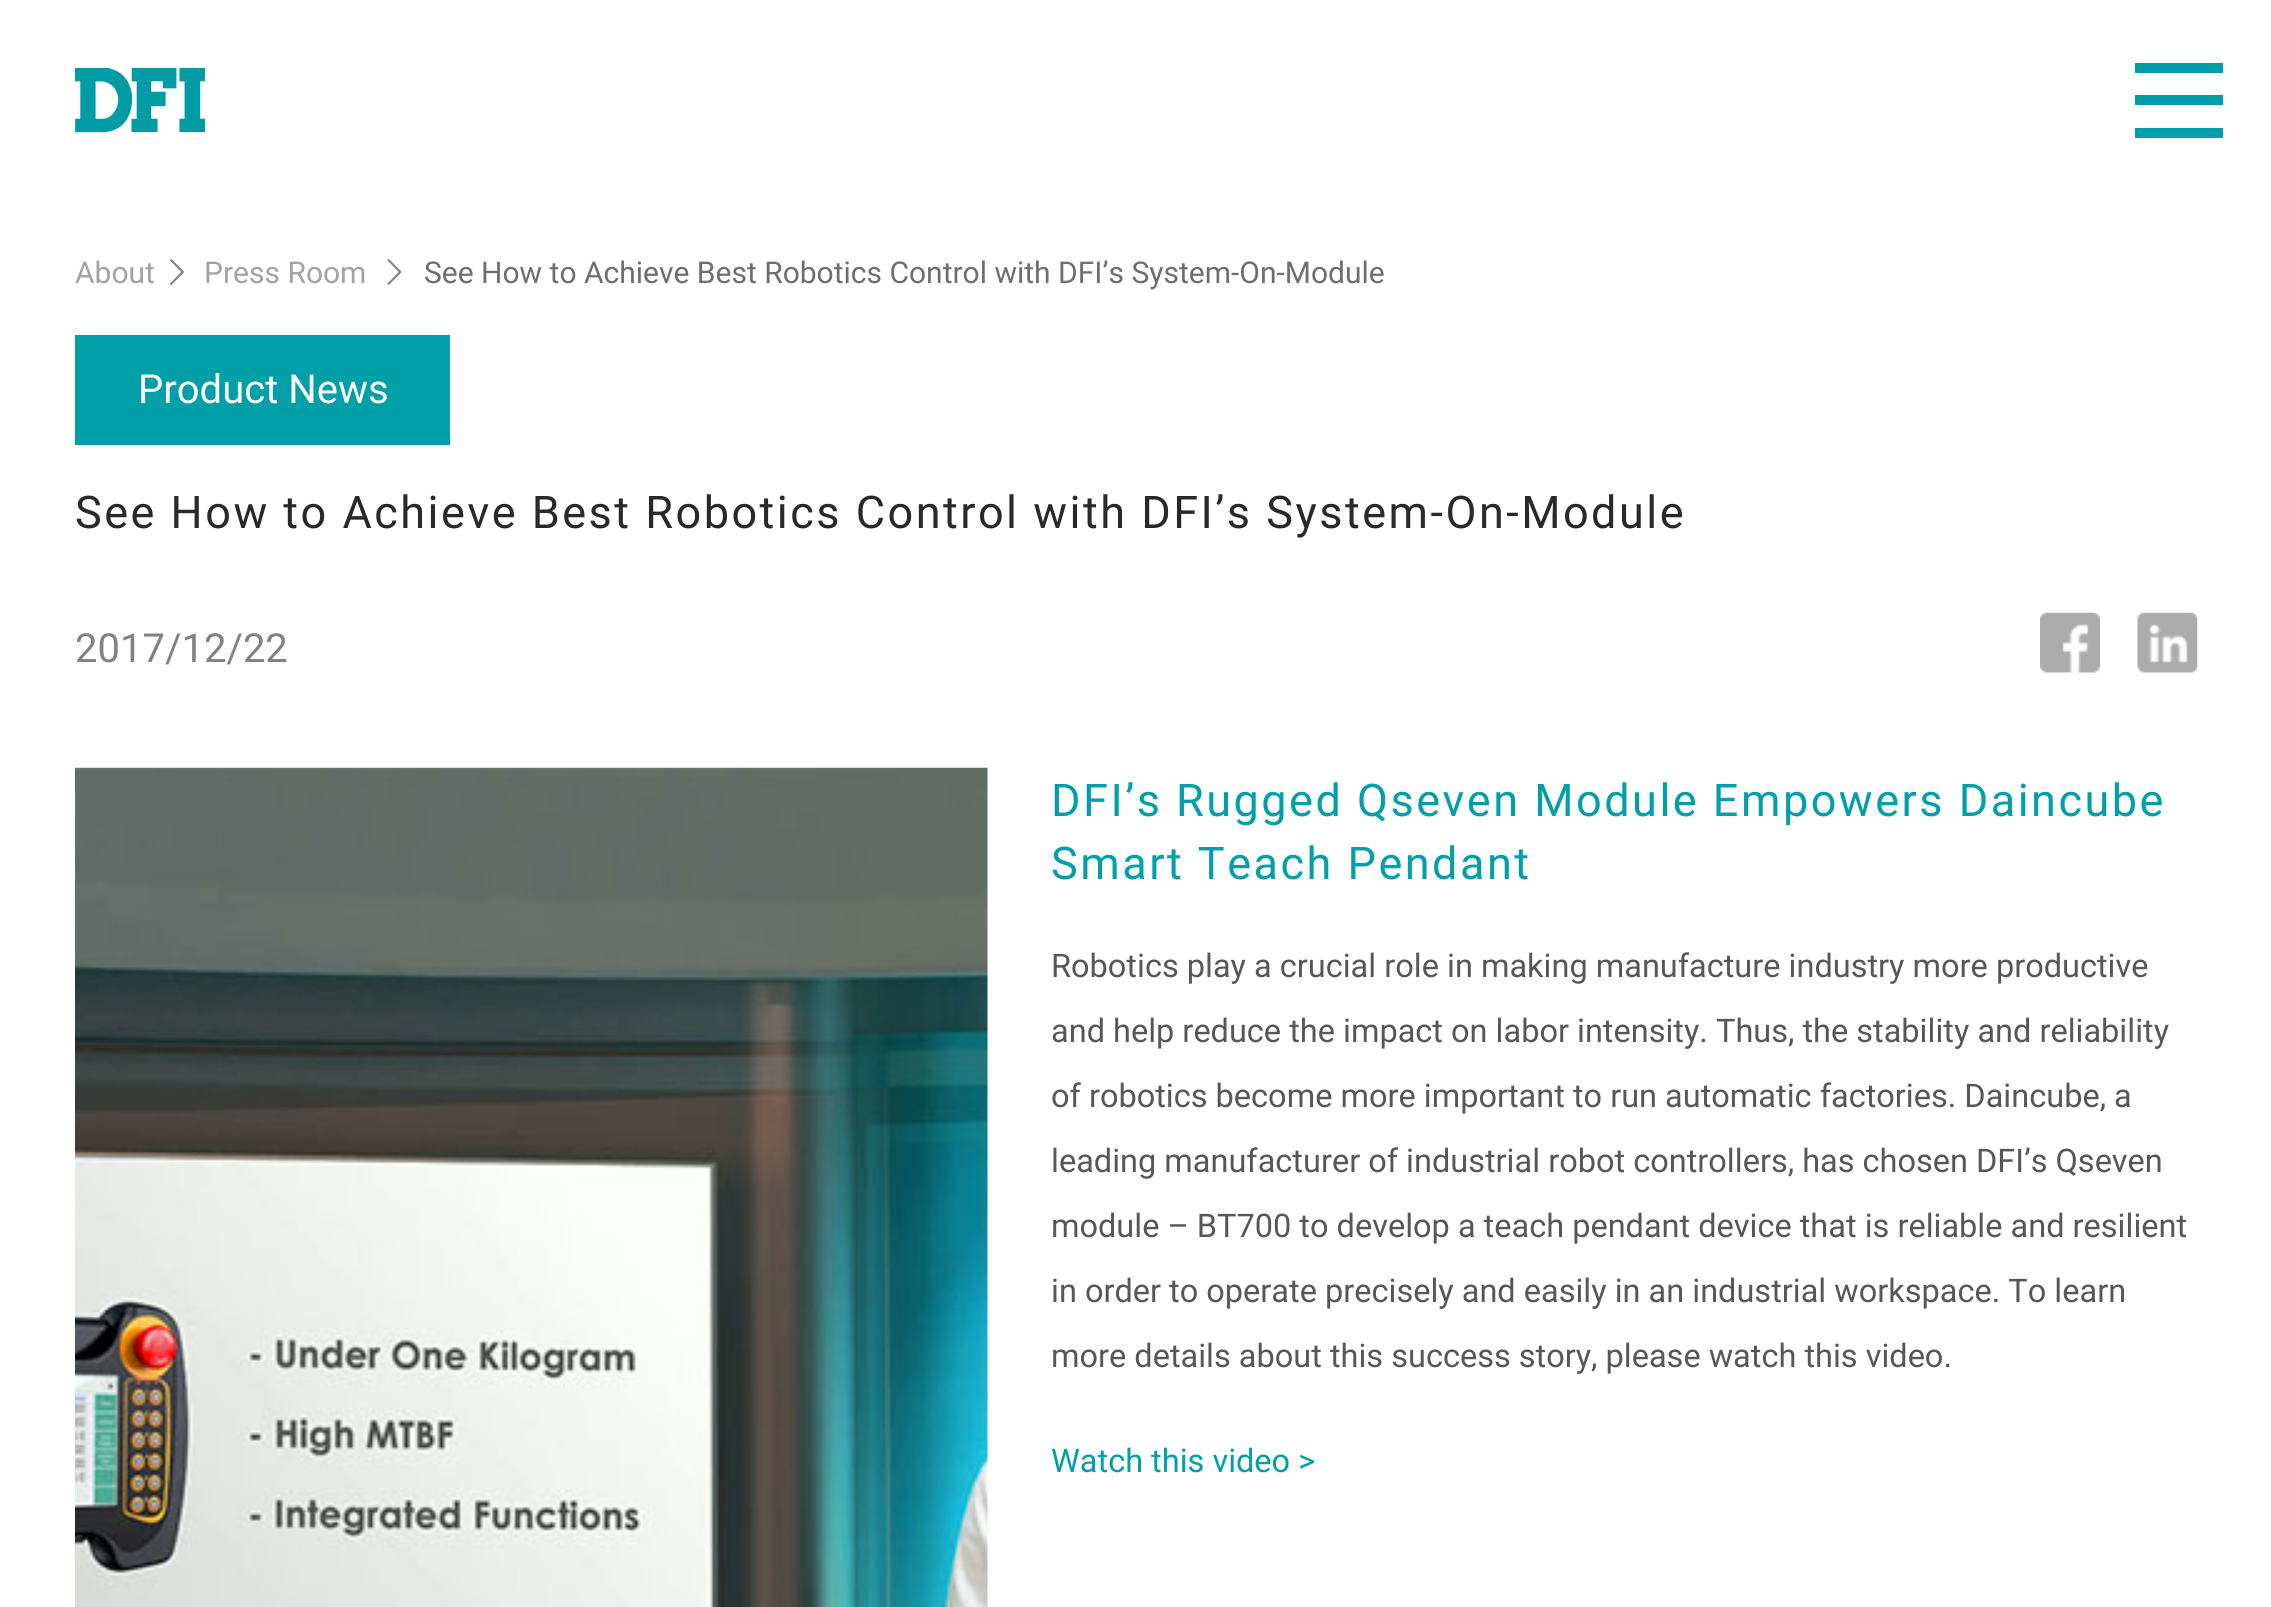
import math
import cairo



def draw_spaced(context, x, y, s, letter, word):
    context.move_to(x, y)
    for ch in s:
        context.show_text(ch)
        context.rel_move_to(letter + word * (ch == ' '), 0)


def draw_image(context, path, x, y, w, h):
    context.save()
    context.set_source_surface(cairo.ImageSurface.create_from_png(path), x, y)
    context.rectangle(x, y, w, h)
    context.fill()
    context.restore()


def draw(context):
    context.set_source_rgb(1, 1, 1)
    context.paint()
    draw_image(context, "images/1.png", 75, 68, 130, 65)
    context.set_source_rgb(1 / 255, 159 / 255, 170 / 255)
    context.rectangle(2135, 63, 88, 10)
    context.fill()
    context.rectangle(2135, 95, 88, 10)
    context.fill()
    context.rectangle(2135, 128, 88, 10)
    context.fill()
    draw_image(context, "images/2.png", 170, 259, 14, 26)
    draw_image(context, "images/3.png", 387, 259, 15, 26)
    context.set_source_rgb(1 / 255, 159 / 255, 168 / 255)
    context.rectangle(75, 335, 375, 110)
    context.fill()
    draw_image(context, "images/4.png", 2040, 612, 60, 61)
    draw_image(context, "images/5.png", 2137, 612, 61, 61)
    draw_image(context, "images/6.png", 75, 767, 913, 840)
    context.select_font_face("Roboto")
    context.set_font_size(30)
    context.set_source_rgb(162 / 255, 162 / 255, 162 / 255)
    context.move_to(75, 283)
    context.show_text("About")
    context.move_to(204, 283)
    context.show_text("Press Room")
    context.set_source_rgb(109 / 255, 110 / 255, 111 / 255)
    context.move_to(424, 283)
    context.show_text("See How to Achieve Best Robotics Control with DFI’s System-On-Module")
    context.set_font_size(40)
    context.set_source_rgb(1, 1, 1)
    context.move_to(138, 403)
    context.show_text("Product News")
    context.set_font_size(45)
    context.set_source_rgb(41 / 255, 41 / 255, 41 / 255)
    draw_spaced(context, 75, 528, "See How to Achieve Best Robotics Control with DFI’s System-On-Module", 2.5, 0)
    context.set_font_size(40)
    context.set_source_rgb(130 / 255, 130 / 255, 130 / 255)
    context.move_to(75, 662)
    context.show_text("2017/12/22")
    context.set_font_size(45)
    context.set_source_rgb(1 / 255, 159 / 255, 170 / 255)
    draw_spaced(context, 1051, 816, "DFI’s Rugged Qseven Module Empowers Daincube", 2.5, 0)
    draw_spaced(context, 1051, 879, "Smart Teach Pendant", 2.5, 0)
    context.set_font_size(32.5)
    context.set_source_rgb(87 / 255, 87 / 255, 87 / 255)
    context.move_to(1051, 977)
    context.show_text("Robotics play a crucial role in making manufacture industry more productive")
    context.move_to(1051, 1042)
    context.show_text("and help reduce the impact on labor intensity. Thus, the stability and reliability")
    context.move_to(1051, 1107)
    context.show_text("of robotics become more important to run automatic factories. Daincube, a")
    context.move_to(1051, 1172)
    context.show_text("leading manufacturer of industrial robot controllers, has chosen DFI’s Qseven")
    context.move_to(1051, 1237)
    context.show_text("module – BT700 to develop a teach pendant device that is reliable and resilient")
    context.move_to(1051, 1302)
    context.show_text("in order to operate precisely and easily in an industrial workspace. To learn")
    context.move_to(1051, 1367)
    context.show_text("more details about this success story, please watch this video.")
    context.set_source_rgb(1 / 255, 159 / 255, 170 / 255)
    context.move_to(1051, 1472)
    context.show_text("Watch this video >")


surface = cairo.ImageSurface(cairo.Format.RGB24, 2271, 1607)
context = cairo.Context(surface)
options = cairo.FontOptions()
options.set_hint_metrics(cairo.HintMetrics.OFF)
options.set_hint_style(cairo.HintStyle.NONE)
context.set_font_options(options)
context.set_miter_limit(4)
draw(context)
surface.write_to_png("out.png")
